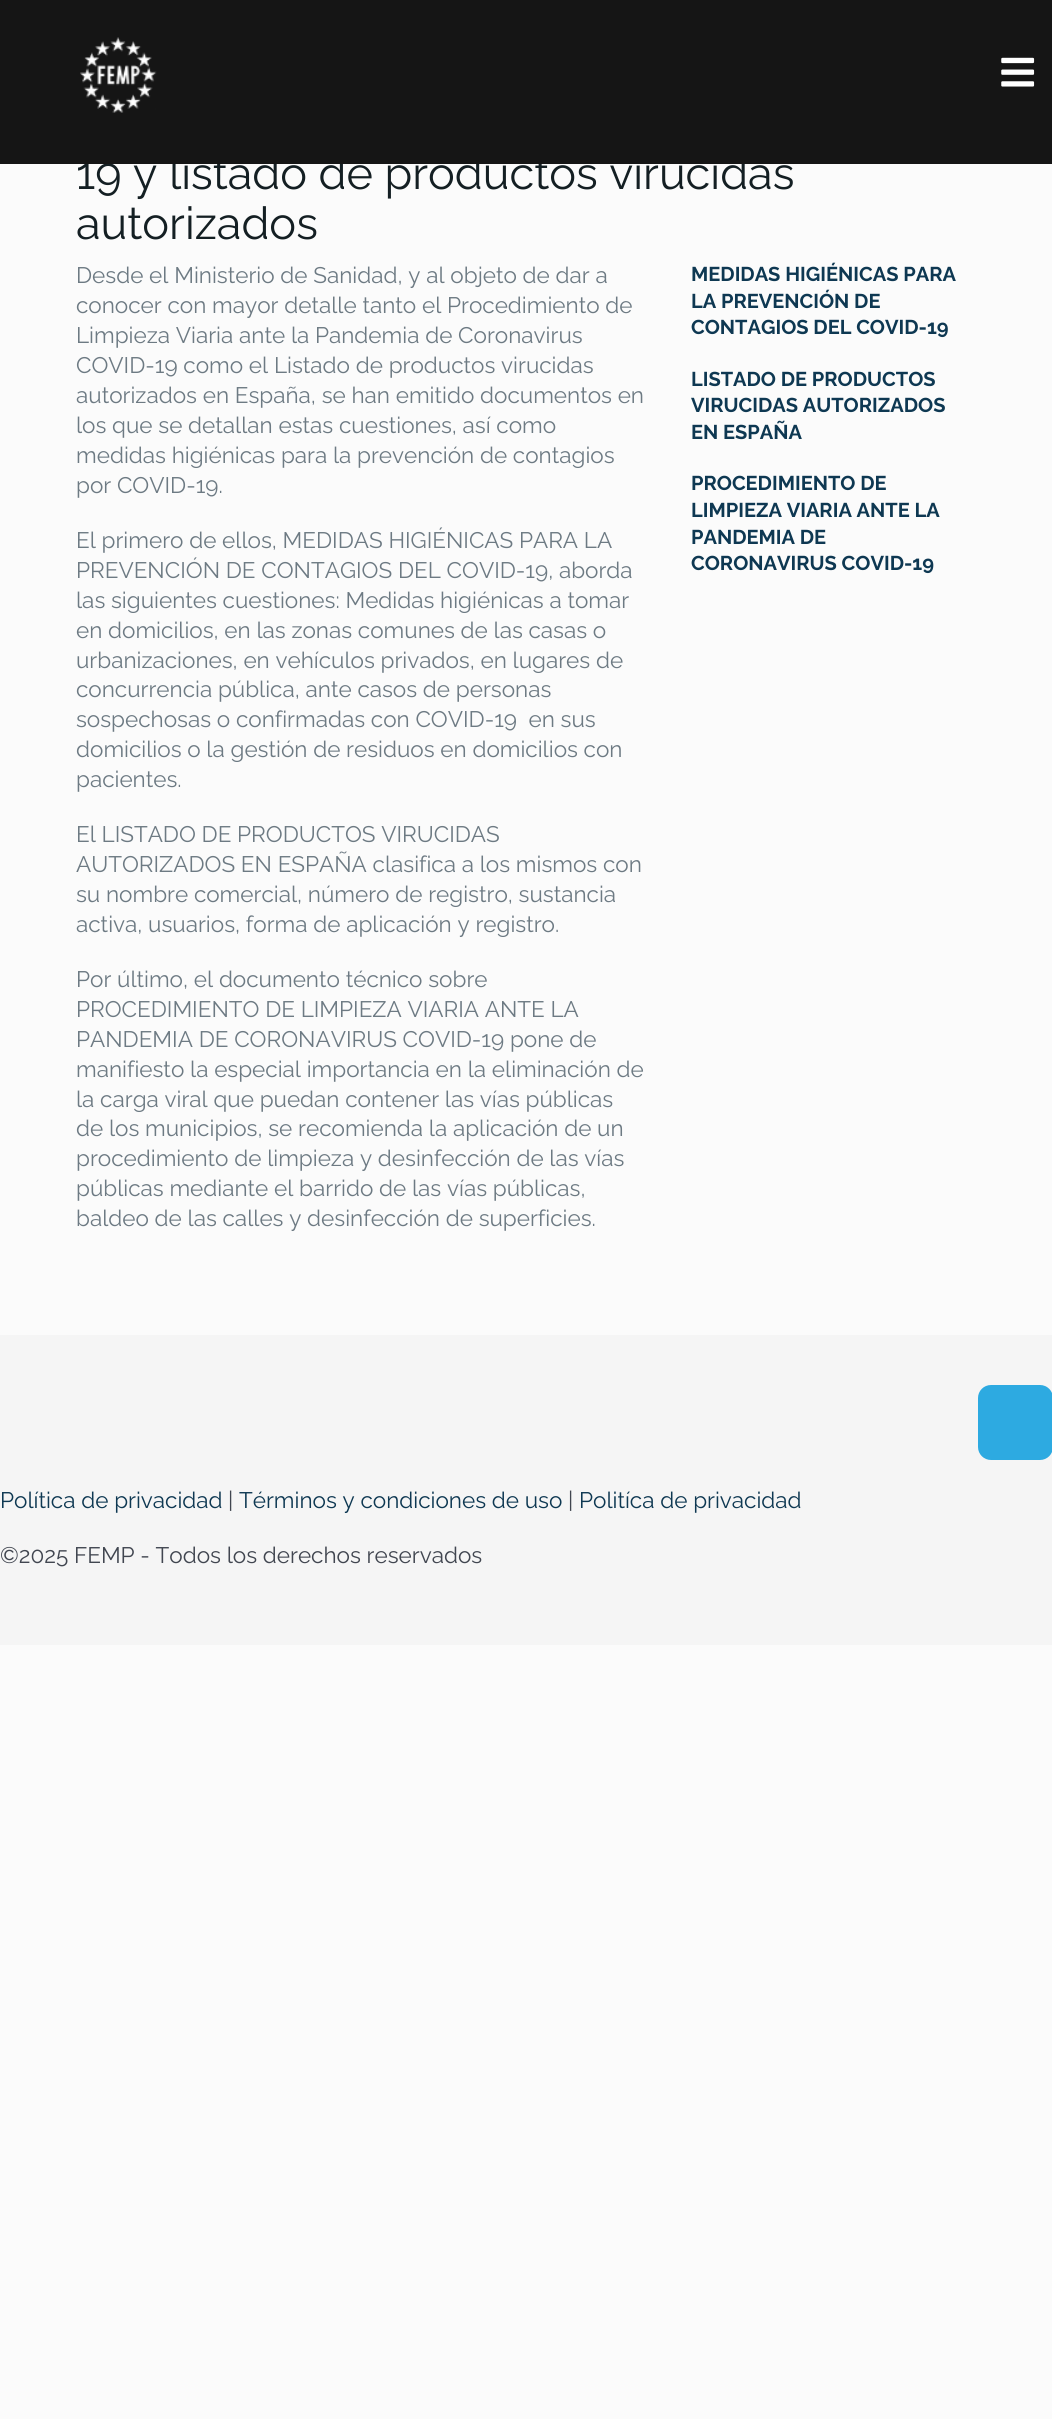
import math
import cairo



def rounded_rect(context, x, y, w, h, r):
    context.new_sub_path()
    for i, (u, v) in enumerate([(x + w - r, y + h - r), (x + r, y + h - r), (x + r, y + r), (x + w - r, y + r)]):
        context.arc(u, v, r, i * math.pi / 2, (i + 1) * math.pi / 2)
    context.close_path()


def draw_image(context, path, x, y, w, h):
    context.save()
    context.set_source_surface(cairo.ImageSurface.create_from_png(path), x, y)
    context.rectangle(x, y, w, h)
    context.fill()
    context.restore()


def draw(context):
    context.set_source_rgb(251 / 255, 251 / 255, 251 / 255)
    context.paint()
    context.set_source_rgb(245 / 255, 245 / 255, 245 / 255)
    context.rectangle(0, 1335, 1052, 310)
    context.fill()
    context.set_source_rgb(45 / 255, 170 / 255, 225 / 255)
    rounded_rect(context, 978, 1385, 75, 75, 13)
    context.fill()
    context.select_font_face("Raleway")
    context.set_font_size(45)
    context.set_source_rgb(20 / 255, 31 / 255, 35 / 255)
    context.move_to(76, 189)
    context.show_text("19 y listado de productos virucidas")
    context.set_source_rgb(21 / 255, 21 / 255, 21 / 255)
    context.rectangle(0, 0, 1052, 164)
    context.fill()
    draw_image(context, "images/2.png", 1001, 57, 34, 30)
    draw_image(context, "images/1.png", 80, 37, 77, 76)
    context.set_source_rgb(20 / 255, 31 / 255, 35 / 255)
    context.move_to(76, 239)
    context.show_text("autorizados")
    context.set_font_size(22.5)
    context.set_source_rgb(109 / 255, 122 / 255, 131 / 255)
    context.move_to(76, 283)
    context.show_text("Desde el Ministerio de Sanidad, y al objeto de dar a")
    context.move_to(76, 313)
    context.show_text("conocer con mayor detalle tanto el Procedimiento de")
    context.move_to(76, 343)
    context.show_text("Limpieza Viaria ante la Pandemia de Coronavirus")
    context.move_to(76, 373)
    context.show_text("COVID-19 como el Listado de productos virucidas")
    context.move_to(76, 403)
    context.show_text("autorizados en España, se han emitido documentos en")
    context.move_to(76, 433)
    context.show_text("los que se detallan estas cuestiones, así como")
    context.move_to(76, 463)
    context.show_text("medidas higiénicas para la prevención de contagios")
    context.move_to(76, 493)
    context.show_text("por COVID-19.")
    context.move_to(76, 548)
    context.show_text("El primero de ellos, MEDIDAS HIGIÉNICAS PARA LA")
    context.move_to(76, 578)
    context.show_text("PREVENCIÓN DE CONTAGIOS DEL COVID-19, aborda")
    context.move_to(76, 608)
    context.show_text("las siguientes cuestiones: Medidas higiénicas a tomar")
    context.move_to(76, 638)
    context.show_text("en domicilios, en las zonas comunes de las casas o")
    context.move_to(76, 668)
    context.show_text("urbanizaciones, en vehículos privados, en lugares de")
    context.move_to(76, 697)
    context.show_text("concurrencia pública, ante casos de personas")
    context.move_to(76, 727)
    context.show_text("sospechosas o confirmadas con COVID-19  en sus")
    context.move_to(76, 757)
    context.show_text("domicilios o la gestión de residuos en domicilios con")
    context.move_to(76, 787)
    context.show_text("pacientes.")
    context.move_to(76, 842)
    context.show_text("El LISTADO DE PRODUCTOS VIRUCIDAS")
    context.move_to(76, 872)
    context.show_text("AUTORIZADOS EN ESPAÑA clasifica a los mismos con")
    context.move_to(76, 902)
    context.show_text("su nombre comercial, número de registro, sustancia")
    context.move_to(76, 932)
    context.show_text("activa, usuarios, forma de aplicación y registro.")
    context.move_to(76, 987)
    context.show_text("Por último, el documento técnico sobre")
    context.move_to(76, 1017)
    context.show_text("PROCEDIMIENTO DE LIMPIEZA VIARIA ANTE LA")
    context.move_to(76, 1047)
    context.show_text("PANDEMIA DE CORONAVIRUS COVID-19 pone de")
    context.move_to(76, 1077)
    context.show_text("manifiesto la especial importancia en la eliminación de")
    context.move_to(76, 1107)
    context.show_text("la carga viral que puedan contener las vías públicas")
    context.move_to(76, 1136)
    context.show_text("de los municipios, se recomienda la aplicación de un")
    context.move_to(76, 1166)
    context.show_text("procedimiento de limpieza y desinfección de las vías")
    context.move_to(76, 1196)
    context.show_text("públicas mediante el barrido de las vías públicas,")
    context.move_to(76, 1226)
    context.show_text("baldeo de las calles y desinfección de superficies.")
    context.select_font_face("Raleway", cairo.FontSlant.NORMAL, cairo.FontWeight.BOLD)
    context.set_font_size(20)
    context.set_source_rgb(14 / 255, 56 / 255, 82 / 255)
    context.move_to(691, 281)
    context.show_text("MEDIDAS HIGIÉNICAS PARA")
    context.move_to(691, 308)
    context.show_text("LA PREVENCIÓN DE")
    context.move_to(691, 334)
    context.show_text("CONTAGIOS DEL COVID-19")
    context.move_to(691, 386)
    context.show_text("LISTADO DE PRODUCTOS")
    context.move_to(691, 412)
    context.show_text("VIRUCIDAS AUTORIZADOS")
    context.move_to(691, 439)
    context.show_text("EN ESPAÑA")
    context.move_to(691, 490)
    context.show_text("PROCEDIMIENTO DE")
    context.move_to(691, 517)
    context.show_text("LIMPIEZA VIARIA ANTE LA")
    context.move_to(691, 544)
    context.show_text("PANDEMIA DE")
    context.move_to(691, 570)
    context.show_text("CORONAVIRUS COVID-19")
    context.select_font_face("Raleway")
    context.set_font_size(22.5)
    context.move_to(0, 1508)
    context.show_text("Política de privacidad")
    context.set_source_rgb(65 / 255, 70 / 255, 80 / 255)
    context.move_to(228, 1508)
    context.show_text("|")
    context.set_source_rgb(14 / 255, 56 / 255, 82 / 255)
    context.move_to(239, 1508)
    context.show_text("Términos y condiciones de uso")
    context.set_source_rgb(65 / 255, 70 / 255, 80 / 255)
    context.move_to(568, 1508)
    context.show_text("|")
    context.set_source_rgb(14 / 255, 56 / 255, 82 / 255)
    context.move_to(579, 1508)
    context.show_text("Politíca de privacidad")
    context.set_source_rgb(65 / 255, 70 / 255, 80 / 255)
    context.move_to(0, 1563)
    context.show_text("©2025 FEMP - Todos los derechos reservados")


surface = cairo.ImageSurface(cairo.Format.RGB24, 1052, 2419)
context = cairo.Context(surface)
options = cairo.FontOptions()
options.set_hint_metrics(cairo.HintMetrics.OFF)
options.set_hint_style(cairo.HintStyle.NONE)
context.set_font_options(options)
context.set_miter_limit(4)
draw(context)
surface.write_to_png("out.png")
